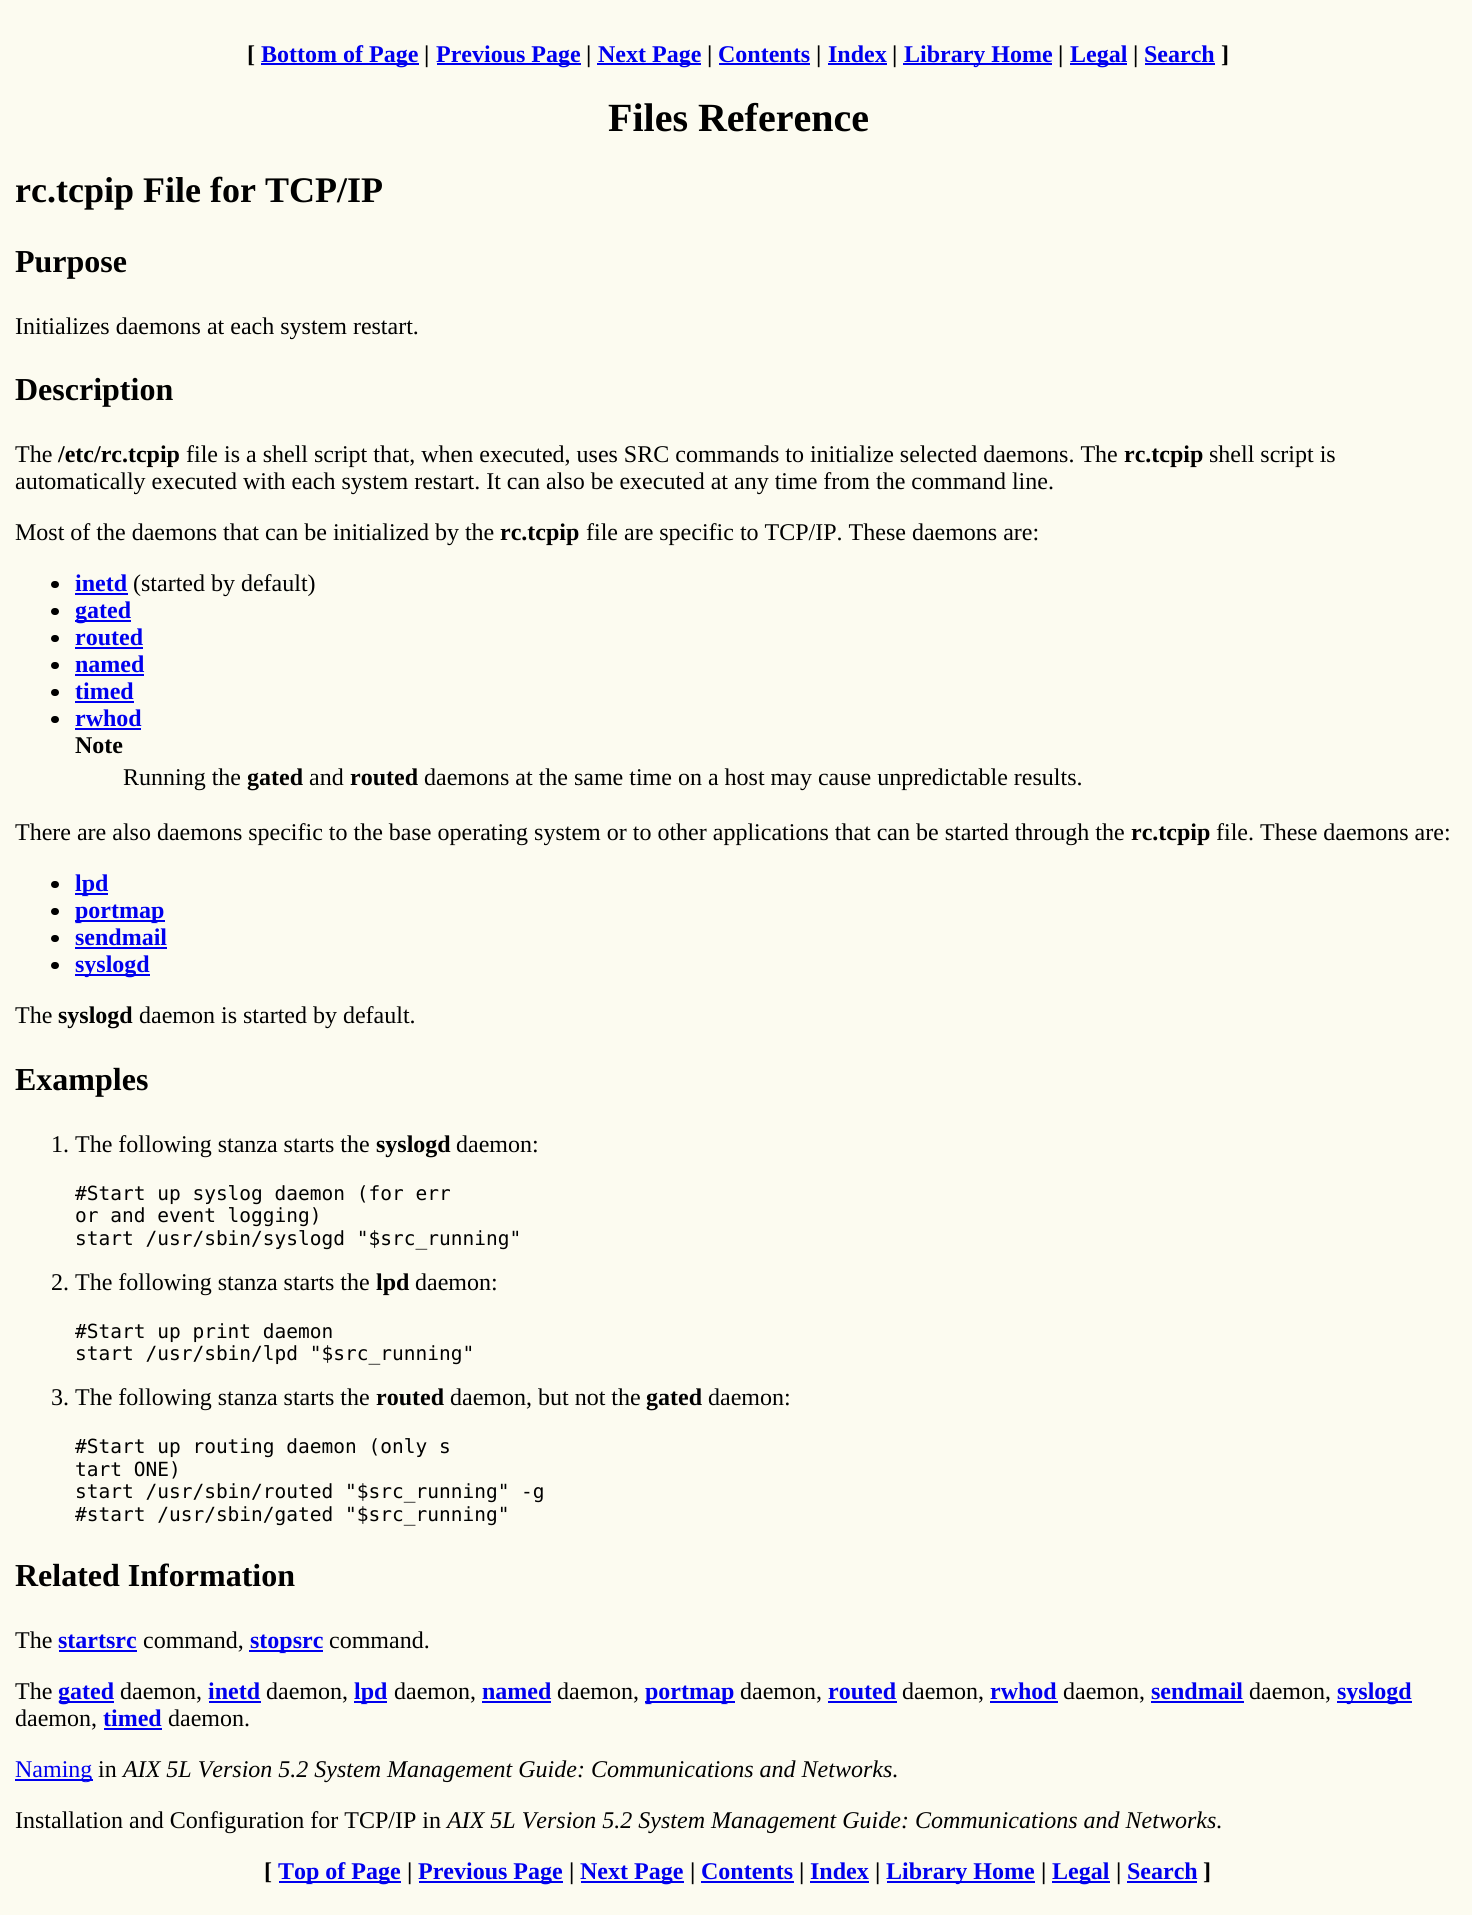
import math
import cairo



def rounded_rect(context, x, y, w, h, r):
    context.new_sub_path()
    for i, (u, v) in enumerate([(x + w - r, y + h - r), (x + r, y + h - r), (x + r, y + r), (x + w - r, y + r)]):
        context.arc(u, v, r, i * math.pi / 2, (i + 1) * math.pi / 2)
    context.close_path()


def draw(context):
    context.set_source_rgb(252 / 255, 251 / 255, 240 / 255)
    context.paint()
    context.set_source_rgb(0, 0, 238 / 255)
    context.rectangle(261, 63, 158, 2)
    context.fill()
    context.rectangle(437, 63, 144, 2)
    context.fill()
    context.rectangle(597, 63, 104, 2)
    context.fill()
    context.rectangle(719, 63, 91, 2)
    context.fill()
    context.rectangle(828, 63, 59, 2)
    context.fill()
    context.rectangle(903, 63, 149, 2)
    context.fill()
    context.rectangle(1070, 63, 57, 2)
    context.fill()
    context.rectangle(1145, 63, 70, 2)
    context.fill()
    context.set_source_rgb(0, 0, 0)
    rounded_rect(context, 51, 581, 8, 7, 3.5)
    context.fill()
    context.set_source_rgb(0, 0, 238 / 255)
    context.rectangle(75, 593, 53, 2)
    context.fill()
    context.set_source_rgb(0, 0, 0)
    rounded_rect(context, 51, 608, 8, 7, 3.5)
    context.fill()
    context.set_source_rgb(0, 0, 238 / 255)
    context.rectangle(75, 620, 56, 2)
    context.fill()
    context.set_source_rgb(0, 0, 0)
    rounded_rect(context, 51, 635, 8, 7, 3.5)
    context.fill()
    context.set_source_rgb(0, 0, 238 / 255)
    context.rectangle(75, 647, 68, 2)
    context.fill()
    context.set_source_rgb(0, 0, 0)
    rounded_rect(context, 51, 662, 8, 7, 3.5)
    context.fill()
    context.set_source_rgb(0, 0, 238 / 255)
    context.rectangle(75, 674, 69, 2)
    context.fill()
    context.set_source_rgb(0, 0, 0)
    rounded_rect(context, 51, 689, 8, 7, 3.5)
    context.fill()
    context.set_source_rgb(0, 0, 238 / 255)
    context.rectangle(75, 701, 59, 2)
    context.fill()
    context.set_source_rgb(0, 0, 0)
    rounded_rect(context, 51, 716, 8, 7, 3.5)
    context.fill()
    context.set_source_rgb(0, 0, 238 / 255)
    context.rectangle(75, 728, 66, 2)
    context.fill()
    context.set_source_rgb(0, 0, 0)
    rounded_rect(context, 51, 881, 8, 7, 3.5)
    context.fill()
    context.set_source_rgb(0, 0, 238 / 255)
    context.rectangle(75, 893, 33, 2)
    context.fill()
    context.set_source_rgb(0, 0, 0)
    rounded_rect(context, 51, 908, 8, 7, 3.5)
    context.fill()
    context.set_source_rgb(0, 0, 238 / 255)
    context.rectangle(75, 920, 90, 2)
    context.fill()
    context.set_source_rgb(0, 0, 0)
    rounded_rect(context, 51, 935, 8, 7, 3.5)
    context.fill()
    context.set_source_rgb(0, 0, 238 / 255)
    context.rectangle(75, 947, 92, 2)
    context.fill()
    context.set_source_rgb(0, 0, 0)
    rounded_rect(context, 51, 962, 8, 7, 3.5)
    context.fill()
    context.set_source_rgb(0, 0, 238 / 255)
    context.rectangle(75, 974, 75, 2)
    context.fill()
    context.rectangle(59, 1650, 78, 2)
    context.fill()
    context.rectangle(249, 1650, 74, 2)
    context.fill()
    context.rectangle(59, 1701, 55, 2)
    context.fill()
    context.rectangle(209, 1701, 52, 2)
    context.fill()
    context.rectangle(354, 1701, 33, 2)
    context.fill()
    context.rectangle(482, 1701, 69, 2)
    context.fill()
    context.rectangle(645, 1701, 90, 2)
    context.fill()
    context.rectangle(828, 1701, 69, 2)
    context.fill()
    context.rectangle(990, 1701, 68, 2)
    context.fill()
    context.rectangle(1151, 1701, 93, 2)
    context.fill()
    context.rectangle(1337, 1701, 75, 2)
    context.fill()
    context.rectangle(104, 1728, 58, 2)
    context.fill()
    context.rectangle(15, 1779, 78, 2)
    context.fill()
    context.rectangle(279, 1881, 122, 2)
    context.fill()
    context.rectangle(419, 1881, 144, 2)
    context.fill()
    context.rectangle(581, 1881, 103, 2)
    context.fill()
    context.rectangle(701, 1881, 93, 2)
    context.fill()
    context.rectangle(810, 1881, 59, 2)
    context.fill()
    context.rectangle(887, 1881, 148, 2)
    context.fill()
    context.rectangle(1052, 1881, 58, 2)
    context.fill()
    context.rectangle(1127, 1881, 70, 2)
    context.fill()
    context.select_font_face("Liberation Serif", cairo.FontSlant.NORMAL, cairo.FontWeight.BOLD)
    context.set_font_size(24)
    context.set_source_rgb(0, 0, 0)
    context.move_to(247, 62)
    context.show_text("[")
    context.set_source_rgb(0, 0, 238 / 255)
    context.move_to(261, 62)
    context.show_text("Bottom of Page")
    context.set_source_rgb(0, 0, 0)
    context.move_to(424, 62)
    context.show_text("|")
    context.set_source_rgb(0, 0, 238 / 255)
    context.move_to(436, 62)
    context.show_text("Previous Page")
    context.set_source_rgb(0, 0, 0)
    context.move_to(586, 62)
    context.show_text("|")
    context.set_source_rgb(0, 0, 238 / 255)
    context.move_to(598, 62)
    context.show_text("Next Page")
    context.set_source_rgb(0, 0, 0)
    context.move_to(707, 62)
    context.show_text("|")
    context.set_source_rgb(0, 0, 238 / 255)
    context.move_to(718, 62)
    context.show_text("Contents")
    context.set_source_rgb(0, 0, 0)
    context.move_to(816, 62)
    context.show_text("|")
    context.set_source_rgb(0, 0, 238 / 255)
    context.move_to(828, 62)
    context.show_text("Index")
    context.set_source_rgb(0, 0, 0)
    context.move_to(892, 62)
    context.show_text("|")
    context.set_source_rgb(0, 0, 238 / 255)
    context.move_to(904, 62)
    context.show_text("Library Home")
    context.set_source_rgb(0, 0, 0)
    context.move_to(1058, 62)
    context.show_text("|")
    context.set_source_rgb(0, 0, 238 / 255)
    context.move_to(1070, 62)
    context.show_text("Legal")
    context.set_source_rgb(0, 0, 0)
    context.move_to(1133, 62)
    context.show_text("|")
    context.set_source_rgb(0, 0, 238 / 255)
    context.move_to(1144, 62)
    context.show_text("Search")
    context.set_source_rgb(0, 0, 0)
    context.move_to(1221, 62)
    context.show_text("]")
    context.set_font_size(40)
    context.move_to(608, 131)
    context.show_text("Files Reference")
    context.set_font_size(36)
    context.move_to(15, 202)
    context.show_text("rc.tcpip File for TCP/IP")
    context.set_font_size(32)
    context.move_to(15, 272)
    context.show_text("Purpose")
    context.select_font_face("Liberation Serif")
    context.set_font_size(24)
    context.move_to(15, 334)
    context.show_text("Initializes daemons at each system restart.")
    context.select_font_face("Liberation Serif", cairo.FontSlant.NORMAL, cairo.FontWeight.BOLD)
    context.set_font_size(32)
    context.move_to(15, 400)
    context.show_text("Description")
    context.select_font_face("Liberation Serif")
    context.set_font_size(24)
    context.move_to(15, 462)
    context.show_text("The")
    context.select_font_face("Liberation Serif", cairo.FontSlant.NORMAL, cairo.FontWeight.BOLD)
    context.move_to(58, 462)
    context.show_text("/etc/rc.tcpip")
    context.select_font_face("Liberation Serif")
    context.move_to(186, 462)
    context.show_text("file is a shell script that, when executed, uses SRC commands to initialize selected daemons. The")
    context.select_font_face("Liberation Serif", cairo.FontSlant.NORMAL, cairo.FontWeight.BOLD)
    context.move_to(1124, 462)
    context.show_text("rc.tcpip")
    context.select_font_face("Liberation Serif")
    context.move_to(1209, 462)
    context.show_text("shell script is")
    context.move_to(15, 489)
    context.show_text("automatically executed with each system restart. It can also be executed at any time from the command line.")
    context.move_to(15, 540)
    context.show_text("Most of the daemons that can be initialized by the")
    context.select_font_face("Liberation Serif", cairo.FontSlant.NORMAL, cairo.FontWeight.BOLD)
    context.move_to(500, 540)
    context.show_text("rc.tcpip")
    context.select_font_face("Liberation Serif")
    context.move_to(586, 540)
    context.show_text("file are specific to TCP/IP. These daemons are:")
    context.select_font_face("Liberation Serif", cairo.FontSlant.NORMAL, cairo.FontWeight.BOLD)
    context.set_source_rgb(0, 0, 238 / 255)
    context.move_to(75, 591)
    context.show_text("inetd")
    context.select_font_face("Liberation Serif")
    context.set_source_rgb(0, 0, 0)
    context.move_to(133, 591)
    context.show_text("(started by default)")
    context.select_font_face("Liberation Serif", cairo.FontSlant.NORMAL, cairo.FontWeight.BOLD)
    context.set_source_rgb(0, 0, 238 / 255)
    context.move_to(75, 618)
    context.show_text("gated")
    context.move_to(75, 645)
    context.show_text("routed")
    context.move_to(75, 672)
    context.show_text("named")
    context.move_to(75, 699)
    context.show_text("timed")
    context.move_to(75, 726)
    context.show_text("rwhod")
    context.set_source_rgb(0, 0, 0)
    context.move_to(75, 753)
    context.show_text("Note")
    context.select_font_face("Liberation Serif")
    context.move_to(123, 785)
    context.show_text("Running the")
    context.select_font_face("Liberation Serif", cairo.FontSlant.NORMAL, cairo.FontWeight.BOLD)
    context.move_to(247, 785)
    context.show_text("gated")
    context.select_font_face("Liberation Serif")
    context.move_to(309, 785)
    context.show_text("and")
    context.select_font_face("Liberation Serif", cairo.FontSlant.NORMAL, cairo.FontWeight.BOLD)
    context.move_to(350, 785)
    context.show_text("routed")
    context.select_font_face("Liberation Serif")
    context.move_to(424, 785)
    context.show_text("daemons at the same time on a host may cause unpredictable results.")
    context.move_to(15, 840)
    context.show_text("There are also daemons specific to the base operating system or to other applications that can be started through the")
    context.select_font_face("Liberation Serif", cairo.FontSlant.NORMAL, cairo.FontWeight.BOLD)
    context.move_to(1131, 840)
    context.show_text("rc.tcpip")
    context.select_font_face("Liberation Serif")
    context.move_to(1216, 840)
    context.show_text("file. These daemons are:")
    context.select_font_face("Liberation Serif", cairo.FontSlant.NORMAL, cairo.FontWeight.BOLD)
    context.set_source_rgb(0, 0, 238 / 255)
    context.move_to(75, 891)
    context.show_text("lpd")
    context.move_to(75, 918)
    context.show_text("portmap")
    context.move_to(75, 945)
    context.show_text("sendmail")
    context.move_to(75, 972)
    context.show_text("syslogd")
    context.select_font_face("Liberation Serif")
    context.set_source_rgb(0, 0, 0)
    context.move_to(15, 1023)
    context.show_text("The")
    context.select_font_face("Liberation Serif", cairo.FontSlant.NORMAL, cairo.FontWeight.BOLD)
    context.move_to(58, 1023)
    context.show_text("syslogd")
    context.select_font_face("Liberation Serif")
    context.move_to(139, 1023)
    context.show_text("daemon is started by default.")
    context.select_font_face("Liberation Serif", cairo.FontSlant.NORMAL, cairo.FontWeight.BOLD)
    context.set_font_size(32)
    context.move_to(15, 1090)
    context.show_text("Examples")
    context.select_font_face("Liberation Serif")
    context.set_font_size(24)
    context.move_to(51, 1152)
    context.show_text("1. The following stanza starts the")
    context.select_font_face("Liberation Serif", cairo.FontSlant.NORMAL, cairo.FontWeight.BOLD)
    context.move_to(376, 1152)
    context.show_text("syslogd")
    context.select_font_face("Liberation Serif")
    context.move_to(456, 1152)
    context.show_text("daemon:")
    context.select_font_face("DejaVu Sans Mono")
    context.set_font_size(19.5)
    context.move_to(75, 1200)
    context.show_text("#Start up syslog daemon (for err")
    context.move_to(75, 1222)
    context.show_text("or and event logging)")
    context.move_to(75, 1245)
    context.show_text("start /usr/sbin/syslogd \"$src_running\"")
    context.select_font_face("Liberation Serif")
    context.set_font_size(24)
    context.move_to(51, 1290)
    context.show_text("2. The following stanza starts the")
    context.select_font_face("Liberation Serif", cairo.FontSlant.NORMAL, cairo.FontWeight.BOLD)
    context.move_to(376, 1290)
    context.show_text("lpd")
    context.select_font_face("Liberation Serif")
    context.move_to(415, 1290)
    context.show_text("daemon:")
    context.select_font_face("DejaVu Sans Mono")
    context.set_font_size(19.5)
    context.move_to(75, 1338)
    context.show_text("#Start up print daemon")
    context.move_to(75, 1360)
    context.show_text("start /usr/sbin/lpd \"$src_running\"")
    context.select_font_face("Liberation Serif")
    context.set_font_size(24)
    context.move_to(51, 1405)
    context.show_text("3. The following stanza starts the")
    context.select_font_face("Liberation Serif", cairo.FontSlant.NORMAL, cairo.FontWeight.BOLD)
    context.move_to(376, 1405)
    context.show_text("routed")
    context.select_font_face("Liberation Serif")
    context.move_to(450, 1405)
    context.show_text("daemon, but not the")
    context.select_font_face("Liberation Serif", cairo.FontSlant.NORMAL, cairo.FontWeight.BOLD)
    context.move_to(646, 1405)
    context.show_text("gated")
    context.select_font_face("Liberation Serif")
    context.move_to(708, 1405)
    context.show_text("daemon:")
    context.select_font_face("DejaVu Sans Mono")
    context.set_font_size(19.5)
    context.move_to(75, 1453)
    context.show_text("#Start up routing daemon (only s")
    context.move_to(75, 1476)
    context.show_text("tart ONE)")
    context.move_to(75, 1498)
    context.show_text("start /usr/sbin/routed \"$src_running\" -g")
    context.move_to(75, 1521)
    context.show_text("#start /usr/sbin/gated \"$src_running\"")
    context.select_font_face("Liberation Serif", cairo.FontSlant.NORMAL, cairo.FontWeight.BOLD)
    context.set_font_size(32)
    context.move_to(15, 1586)
    context.show_text("Related Information")
    context.select_font_face("Liberation Serif")
    context.set_font_size(24)
    context.move_to(15, 1648)
    context.show_text("The")
    context.select_font_face("Liberation Serif", cairo.FontSlant.NORMAL, cairo.FontWeight.BOLD)
    context.set_source_rgb(0, 0, 238 / 255)
    context.move_to(58, 1648)
    context.show_text("startsrc")
    context.select_font_face("Liberation Serif")
    context.set_source_rgb(0, 0, 0)
    context.move_to(143, 1648)
    context.show_text("command,")
    context.select_font_face("Liberation Serif", cairo.FontSlant.NORMAL, cairo.FontWeight.BOLD)
    context.set_source_rgb(0, 0, 238 / 255)
    context.move_to(250, 1648)
    context.show_text("stopsrc")
    context.select_font_face("Liberation Serif")
    context.set_source_rgb(0, 0, 0)
    context.move_to(329, 1648)
    context.show_text("command.")
    context.move_to(15, 1699)
    context.show_text("The")
    context.select_font_face("Liberation Serif", cairo.FontSlant.NORMAL, cairo.FontWeight.BOLD)
    context.set_source_rgb(0, 0, 238 / 255)
    context.move_to(58, 1699)
    context.show_text("gated")
    context.select_font_face("Liberation Serif")
    context.set_source_rgb(0, 0, 0)
    context.move_to(120, 1699)
    context.show_text("daemon,")
    context.select_font_face("Liberation Serif", cairo.FontSlant.NORMAL, cairo.FontWeight.BOLD)
    context.set_source_rgb(0, 0, 238 / 255)
    context.move_to(208, 1699)
    context.show_text("inetd")
    context.select_font_face("Liberation Serif")
    context.set_source_rgb(0, 0, 0)
    context.move_to(266, 1699)
    context.show_text("daemon,")
    context.select_font_face("Liberation Serif", cairo.FontSlant.NORMAL, cairo.FontWeight.BOLD)
    context.set_source_rgb(0, 0, 238 / 255)
    context.move_to(354, 1699)
    context.show_text("lpd")
    context.select_font_face("Liberation Serif")
    context.set_source_rgb(0, 0, 0)
    context.move_to(394, 1699)
    context.show_text("daemon,")
    context.select_font_face("Liberation Serif", cairo.FontSlant.NORMAL, cairo.FontWeight.BOLD)
    context.set_source_rgb(0, 0, 238 / 255)
    context.move_to(482, 1699)
    context.show_text("named")
    context.select_font_face("Liberation Serif")
    context.set_source_rgb(0, 0, 0)
    context.move_to(557, 1699)
    context.show_text("daemon,")
    context.select_font_face("Liberation Serif", cairo.FontSlant.NORMAL, cairo.FontWeight.BOLD)
    context.set_source_rgb(0, 0, 238 / 255)
    context.move_to(645, 1699)
    context.show_text("portmap")
    context.select_font_face("Liberation Serif")
    context.set_source_rgb(0, 0, 0)
    context.move_to(740, 1699)
    context.show_text("daemon,")
    context.select_font_face("Liberation Serif", cairo.FontSlant.NORMAL, cairo.FontWeight.BOLD)
    context.set_source_rgb(0, 0, 238 / 255)
    context.move_to(828, 1699)
    context.show_text("routed")
    context.select_font_face("Liberation Serif")
    context.set_source_rgb(0, 0, 0)
    context.move_to(902, 1699)
    context.show_text("daemon,")
    context.select_font_face("Liberation Serif", cairo.FontSlant.NORMAL, cairo.FontWeight.BOLD)
    context.set_source_rgb(0, 0, 238 / 255)
    context.move_to(990, 1699)
    context.show_text("rwhod")
    context.select_font_face("Liberation Serif")
    context.set_source_rgb(0, 0, 0)
    context.move_to(1063, 1699)
    context.show_text("daemon,")
    context.select_font_face("Liberation Serif", cairo.FontSlant.NORMAL, cairo.FontWeight.BOLD)
    context.set_source_rgb(0, 0, 238 / 255)
    context.move_to(1151, 1699)
    context.show_text("sendmail")
    context.select_font_face("Liberation Serif")
    context.set_source_rgb(0, 0, 0)
    context.move_to(1249, 1699)
    context.show_text("daemon,")
    context.select_font_face("Liberation Serif", cairo.FontSlant.NORMAL, cairo.FontWeight.BOLD)
    context.set_source_rgb(0, 0, 238 / 255)
    context.move_to(1337, 1699)
    context.show_text("syslogd")
    context.select_font_face("Liberation Serif")
    context.set_source_rgb(0, 0, 0)
    context.move_to(15, 1726)
    context.show_text("daemon,")
    context.select_font_face("Liberation Serif", cairo.FontSlant.NORMAL, cairo.FontWeight.BOLD)
    context.set_source_rgb(0, 0, 238 / 255)
    context.move_to(103, 1726)
    context.show_text("timed")
    context.select_font_face("Liberation Serif")
    context.set_source_rgb(0, 0, 0)
    context.move_to(168, 1726)
    context.show_text("daemon.")
    context.set_source_rgb(0, 0, 238 / 255)
    context.move_to(15, 1777)
    context.show_text("Naming")
    context.set_source_rgb(0, 0, 0)
    context.move_to(98, 1777)
    context.show_text("in")
    context.select_font_face("Liberation Serif", cairo.FontSlant.ITALIC)
    context.move_to(123, 1777)
    context.show_text("AIX 5L Version 5.2 System Management Guide: Communications and Networks")
    context.select_font_face("Liberation Serif")
    context.move_to(892, 1777)
    context.show_text(".")
    context.move_to(15, 1828)
    context.show_text("Installation and Configuration for TCP/IP in")
    context.select_font_face("Liberation Serif", cairo.FontSlant.ITALIC)
    context.move_to(447, 1828)
    context.show_text("AIX 5L Version 5.2 System Management Guide: Communications and Networks")
    context.select_font_face("Liberation Serif")
    context.move_to(1216, 1828)
    context.show_text(".")
    context.select_font_face("Liberation Serif", cairo.FontSlant.NORMAL, cairo.FontWeight.BOLD)
    context.move_to(264, 1879)
    context.show_text("[")
    context.set_source_rgb(0, 0, 238 / 255)
    context.move_to(278, 1879)
    context.show_text("Top of Page")
    context.set_source_rgb(0, 0, 0)
    context.move_to(407, 1879)
    context.show_text("|")
    context.set_source_rgb(0, 0, 238 / 255)
    context.move_to(418, 1879)
    context.show_text("Previous Page")
    context.set_source_rgb(0, 0, 0)
    context.move_to(569, 1879)
    context.show_text("|")
    context.set_source_rgb(0, 0, 238 / 255)
    context.move_to(580, 1879)
    context.show_text("Next Page")
    context.set_source_rgb(0, 0, 0)
    context.move_to(690, 1879)
    context.show_text("|")
    context.set_source_rgb(0, 0, 238 / 255)
    context.move_to(701, 1879)
    context.show_text("Contents")
    context.set_source_rgb(0, 0, 0)
    context.move_to(799, 1879)
    context.show_text("|")
    context.set_source_rgb(0, 0, 238 / 255)
    context.move_to(810, 1879)
    context.show_text("Index")
    context.set_source_rgb(0, 0, 0)
    context.move_to(875, 1879)
    context.show_text("|")
    context.set_source_rgb(0, 0, 238 / 255)
    context.move_to(886, 1879)
    context.show_text("Library Home")
    context.set_source_rgb(0, 0, 0)
    context.move_to(1041, 1879)
    context.show_text("|")
    context.set_source_rgb(0, 0, 238 / 255)
    context.move_to(1052, 1879)
    context.show_text("Legal")
    context.set_source_rgb(0, 0, 0)
    context.move_to(1116, 1879)
    context.show_text("|")
    context.set_source_rgb(0, 0, 238 / 255)
    context.move_to(1127, 1879)
    context.show_text("Search")
    context.set_source_rgb(0, 0, 0)
    context.move_to(1203, 1879)
    context.show_text("]")


surface = cairo.ImageSurface(cairo.Format.RGB24, 1472, 1915)
context = cairo.Context(surface)
options = cairo.FontOptions()
options.set_hint_metrics(cairo.HintMetrics.OFF)
options.set_hint_style(cairo.HintStyle.NONE)
context.set_font_options(options)
context.set_miter_limit(4)
draw(context)
surface.write_to_png("out.png")
